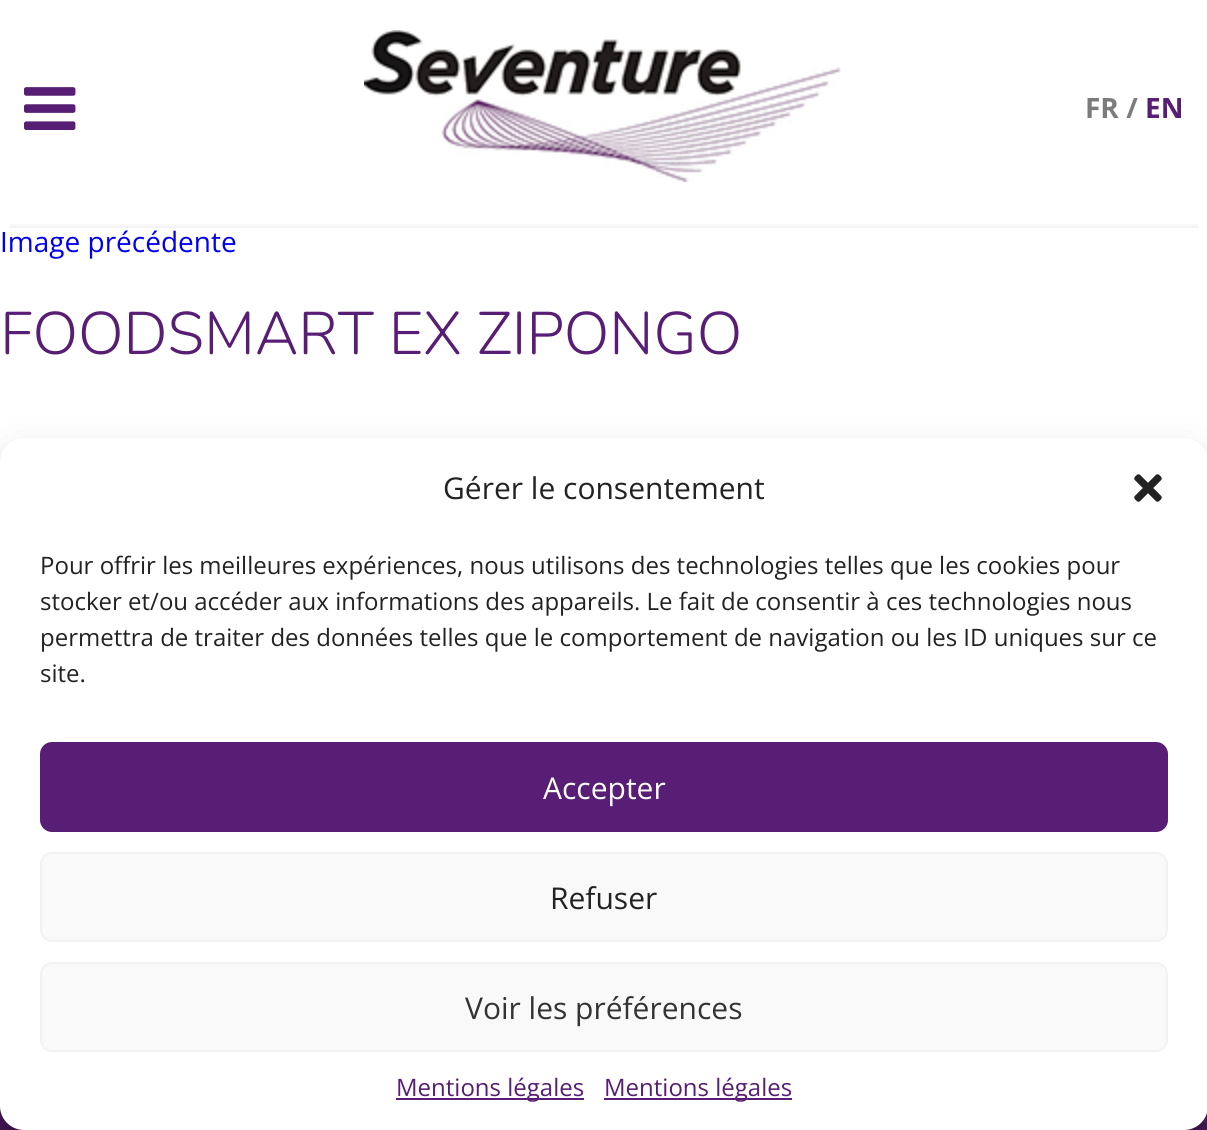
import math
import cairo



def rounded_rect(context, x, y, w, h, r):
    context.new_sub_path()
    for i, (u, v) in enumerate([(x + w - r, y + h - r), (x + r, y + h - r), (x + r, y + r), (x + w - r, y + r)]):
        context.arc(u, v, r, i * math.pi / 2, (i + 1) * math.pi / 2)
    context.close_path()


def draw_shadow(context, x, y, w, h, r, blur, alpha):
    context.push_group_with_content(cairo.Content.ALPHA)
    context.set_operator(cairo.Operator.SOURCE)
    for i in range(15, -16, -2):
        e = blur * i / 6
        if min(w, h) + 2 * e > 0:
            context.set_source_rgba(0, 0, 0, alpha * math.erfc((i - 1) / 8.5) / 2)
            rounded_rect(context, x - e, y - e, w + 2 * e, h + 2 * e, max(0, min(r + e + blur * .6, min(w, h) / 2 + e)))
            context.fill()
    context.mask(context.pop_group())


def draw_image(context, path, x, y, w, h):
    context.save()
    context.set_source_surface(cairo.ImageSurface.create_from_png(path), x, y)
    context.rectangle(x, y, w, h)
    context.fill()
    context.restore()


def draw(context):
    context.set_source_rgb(1, 1, 1)
    context.paint()
    draw_image(context, "images/1.png", 24, 87, 52, 43)
    draw_image(context, "images/2.png", 364, 30, 477, 152)
    context.save()
    context.rectangle(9, 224, 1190, 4)
    context.clip()
    context.set_source_rgb(0, 0, 0)
    draw_shadow(context, 10, 228, 1188, 530, 0, 5, 0.1)
    context.restore()
    draw_image(context, "images/3.png", 0, 1106, 1207, 24)
    context.set_source_rgb(0, 0, 0)
    draw_shadow(context, 0, 450, 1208, 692, 24, 6, 0.23)
    draw_shadow(context, 0, 458, 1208, 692, 24, 20, 0.19)
    context.set_source_rgb(1, 1, 1)
    rounded_rect(context, 0, 438, 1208, 692, 24)
    context.fill()
    draw_image(context, "images/4.png", 1134, 474, 28, 28)
    context.set_source_rgb(88 / 255, 29 / 255, 116 / 255)
    rounded_rect(context, 41, 743, 1126, 88, 11)
    context.fill_preserve()
    context.stroke()
    context.set_source_rgb(249 / 255, 249 / 255, 249 / 255)
    rounded_rect(context, 41, 853, 1126, 88, 11)
    context.fill_preserve()
    context.set_source_rgb(242 / 255, 242 / 255, 242 / 255)
    context.stroke()
    context.set_source_rgb(249 / 255, 249 / 255, 249 / 255)
    rounded_rect(context, 41, 963, 1126, 88, 11)
    context.fill_preserve()
    context.set_source_rgb(242 / 255, 242 / 255, 242 / 255)
    context.stroke()
    context.set_source_rgb(88 / 255, 29 / 255, 116 / 255)
    context.rectangle(396, 1098, 188, 2)
    context.fill()
    context.rectangle(604, 1098, 188, 2)
    context.fill()
    context.select_font_face("Open Sans", cairo.FontSlant.NORMAL, cairo.FontWeight.BOLD)
    context.set_font_size(28)
    context.set_source_rgb(124 / 255, 124 / 255, 124 / 255)
    context.move_to(1085, 118)
    context.show_text("FR /")
    context.set_source_rgb(88 / 255, 29 / 255, 116 / 255)
    context.move_to(1145, 118)
    context.show_text("EN")
    context.select_font_face("Open Sans")
    context.set_source_rgb(0, 0, 238 / 255)
    context.move_to(0, 252)
    context.show_text("Image précédente")
    context.select_font_face("Nunito Light")
    context.set_font_size(60)
    context.set_source_rgb(88 / 255, 29 / 255, 116 / 255)
    context.move_to(0, 354)
    context.show_text("FOODSMART EX ZIPONGO")
    context.select_font_face("Open Sans")
    context.set_font_size(30)
    context.set_source_rgb(34 / 255, 34 / 255, 34 / 255)
    context.move_to(443, 499)
    context.show_text("Gérer le consentement")
    context.set_font_size(24)
    context.move_to(40, 574)
    context.show_text("Pour offrir les meilleures expériences, nous utilisons des technologies telles que les cookies pour")
    context.move_to(40, 610)
    context.show_text("stocker et/ou accéder aux informations des appareils. Le fait de consentir à ces technologies nous")
    context.move_to(40, 646)
    context.show_text("permettra de traiter des données telles que le comportement de navigation ou les ID uniques sur ce")
    context.move_to(40, 682)
    context.show_text("site.")
    context.set_font_size(30)
    context.set_source_rgb(1, 1, 1)
    context.move_to(543, 799)
    context.show_text("Accepter")
    context.set_source_rgb(34 / 255, 34 / 255, 34 / 255)
    context.move_to(550, 909)
    context.show_text("Refuser")
    context.set_source_rgb(51 / 255, 51 / 255, 51 / 255)
    context.move_to(465, 1019)
    context.show_text("Voir les préférences")
    context.set_font_size(24)
    context.set_source_rgb(88 / 255, 29 / 255, 116 / 255)
    context.move_to(396, 1096)
    context.show_text("Mentions légales")
    context.move_to(604, 1096)
    context.show_text("Mentions légales")


surface = cairo.ImageSurface(cairo.Format.RGB24, 1207, 1130)
context = cairo.Context(surface)
options = cairo.FontOptions()
options.set_hint_metrics(cairo.HintMetrics.OFF)
options.set_hint_style(cairo.HintStyle.NONE)
context.set_font_options(options)
context.set_miter_limit(4)
draw(context)
surface.write_to_png("out.png")
